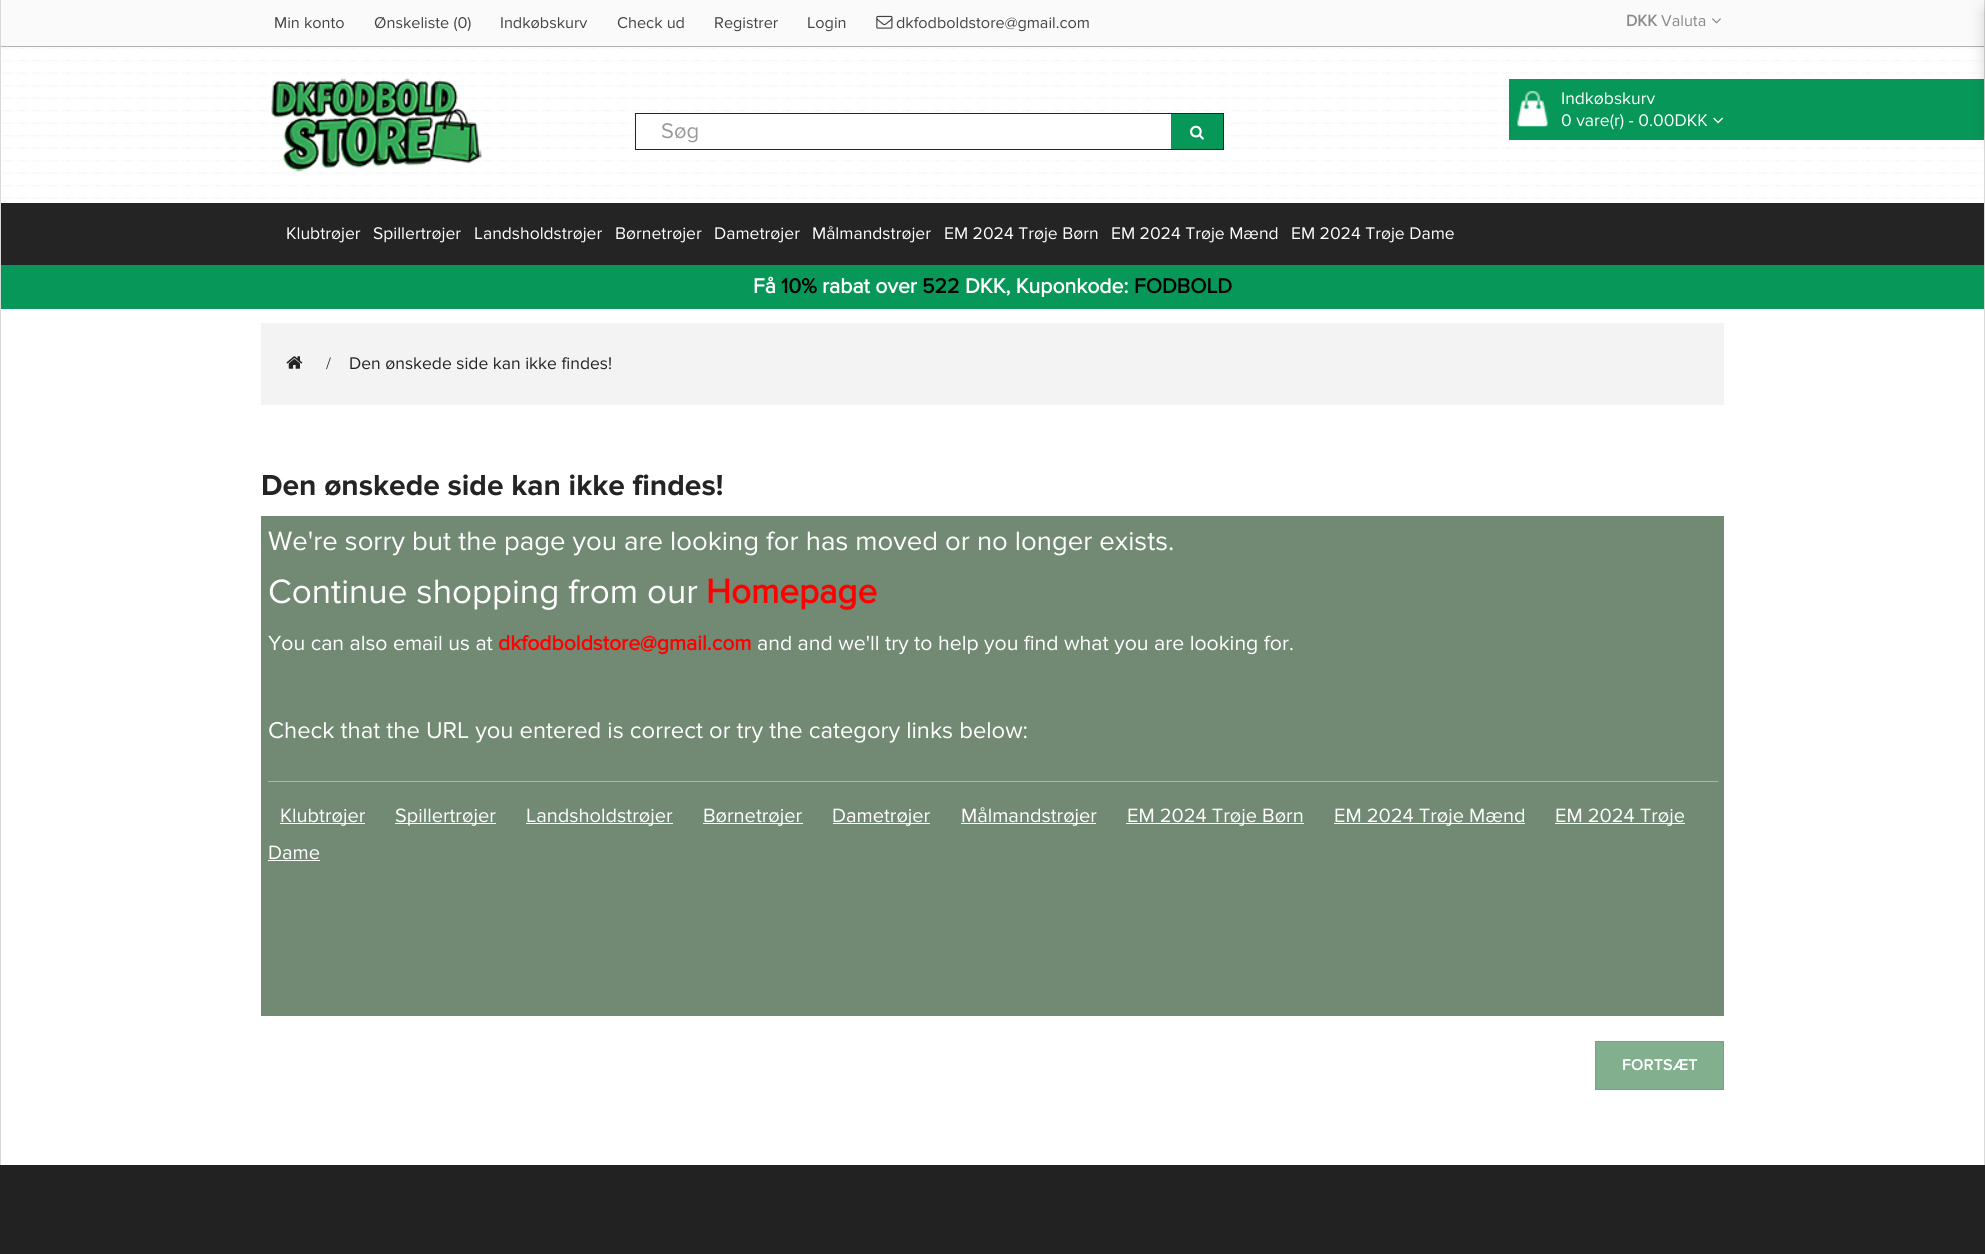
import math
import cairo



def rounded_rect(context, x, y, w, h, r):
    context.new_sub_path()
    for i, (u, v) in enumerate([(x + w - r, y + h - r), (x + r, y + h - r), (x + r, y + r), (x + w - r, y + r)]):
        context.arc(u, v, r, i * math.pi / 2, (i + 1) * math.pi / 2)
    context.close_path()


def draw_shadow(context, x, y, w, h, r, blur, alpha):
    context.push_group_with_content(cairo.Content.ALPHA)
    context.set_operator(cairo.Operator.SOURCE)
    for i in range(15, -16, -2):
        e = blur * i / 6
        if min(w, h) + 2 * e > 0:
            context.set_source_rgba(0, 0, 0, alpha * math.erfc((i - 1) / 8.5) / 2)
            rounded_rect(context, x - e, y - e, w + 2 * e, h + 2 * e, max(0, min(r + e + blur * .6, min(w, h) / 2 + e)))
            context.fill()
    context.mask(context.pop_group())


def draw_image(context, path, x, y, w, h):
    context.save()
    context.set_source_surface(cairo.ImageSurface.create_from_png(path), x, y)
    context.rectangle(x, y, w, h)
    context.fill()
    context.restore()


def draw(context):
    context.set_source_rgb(1, 1, 1)
    context.paint()
    context.set_source_rgb(217 / 255, 217 / 255, 217 / 255)
    context.rectangle(1984, 0, 1, 1165)
    context.fill()
    context.rectangle(0, 0, 1, 1165)
    context.fill()
    context.set_source_rgb(250 / 255, 250 / 255, 250 / 255)
    context.rectangle(1, 0, 1983, 48)
    context.fill()
    context.set_source_rgb(177 / 255, 177 / 255, 177 / 255)
    context.rectangle(1, 46, 1983, 1)
    context.fill()
    draw_image(context, "images/1.png", 876, 15, 17, 14)
    draw_image(context, "images/2.png", 1712, 18, 9, 6)
    draw_image(context, "images/3.png", 2, 48, 1982, 151)
    draw_image(context, "images/4.png", 271, 78, 211, 94)
    context.set_source_rgb(7 / 255, 152 / 255, 89 / 255)
    context.rectangle(1509, 79, 475, 61)
    context.fill()
    draw_image(context, "images/5.png", 1517, 91, 31, 36)
    draw_image(context, "images/6.png", 1713, 117, 10, 7)
    context.set_source_rgb(0, 0, 0)
    draw_shadow(context, 1985, 10, 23, 125, 0, 7.5, 0.18)
    context.set_source_rgb(7 / 255, 152 / 255, 89 / 255)
    context.rectangle(1171, 114, 52, 35)
    context.fill()
    context.set_source_rgb(36 / 255, 36 / 255, 36 / 255)
    context.rectangle(635, 113, 589, 1)
    context.fill()
    context.rectangle(1223, 113, 1, 37)
    context.fill()
    context.rectangle(635, 149, 589, 1)
    context.fill()
    draw_image(context, "images/7.png", 1190, 125, 14, 15)
    context.set_source_rgb(1, 1, 1)
    context.rectangle(636, 122, 535, 27)
    context.fill()
    context.set_source_rgb(36 / 255, 36 / 255, 36 / 255)
    context.rectangle(635, 113, 1, 37)
    context.fill()
    context.rectangle(1, 203, 1983, 62)
    context.fill()
    context.set_source_rgb(7 / 255, 152 / 255, 89 / 255)
    context.rectangle(1, 265, 1983, 44)
    context.fill()
    context.set_source_rgb(243 / 255, 243 / 255, 243 / 255)
    context.rectangle(261, 323, 1463, 82)
    context.fill()
    draw_image(context, "images/8.png", 286, 356, 17, 13)
    context.set_source_rgb(114 / 255, 138 / 255, 115 / 255)
    context.rectangle(261, 516, 1463, 500)
    context.fill()
    context.set_source_rgb(177 / 255, 177 / 255, 177 / 255)
    context.rectangle(268, 781, 1450, 1)
    context.fill()
    context.set_source_rgb(1, 1, 1)
    context.rectangle(280, 823, 85, 1)
    context.fill()
    context.rectangle(395, 823, 101, 1)
    context.fill()
    context.rectangle(526, 823, 147, 1)
    context.fill()
    context.rectangle(703, 823, 100, 1)
    context.fill()
    context.rectangle(833, 823, 97, 1)
    context.fill()
    context.rectangle(961, 823, 135, 1)
    context.fill()
    context.rectangle(1126, 823, 178, 1)
    context.fill()
    context.rectangle(1334, 823, 191, 1)
    context.fill()
    context.rectangle(1555, 823, 130, 1)
    context.fill()
    context.rectangle(268, 860, 52, 1)
    context.fill()
    context.set_source_rgb(130 / 255, 176 / 255, 142 / 255)
    context.rectangle(1595.5, 1041.5, 128, 48)
    context.fill_preserve()
    context.set_source_rgb(114 / 255, 166 / 255, 128 / 255)
    context.set_line_width(1)
    context.stroke()
    context.set_source_rgb(34 / 255, 34 / 255, 34 / 255)
    context.rectangle(0, 1165, 1985, 89)
    context.fill()
    context.select_font_face("Proxima Nova")
    context.set_font_size(16.25)
    context.set_source_rgb(68 / 255, 68 / 255, 68 / 255)
    context.move_to(274, 28)
    context.show_text("Min konto")
    context.move_to(374, 28)
    context.show_text("Ønskeliste (0)")
    context.move_to(500, 28)
    context.show_text("Indkøbskurv")
    context.move_to(617, 28)
    context.show_text("Check ud")
    context.move_to(714, 28)
    context.show_text("Registrer")
    context.move_to(807, 28)
    context.show_text("Login")
    context.move_to(896, 28)
    context.show_text("dkfodboldstore@gmail.com")
    context.select_font_face("Proxima Nova", cairo.FontSlant.NORMAL, cairo.FontWeight.BOLD)
    context.set_source_rgb(138 / 255, 138 / 255, 138 / 255)
    context.move_to(1626, 26)
    context.show_text("DKK")
    context.select_font_face("Proxima Nova")
    context.move_to(1661, 26)
    context.show_text("Valuta")
    context.set_font_size(17.5)
    context.set_source_rgb(1, 1, 1)
    context.move_to(1561, 104)
    context.show_text("Indkøbskurv")
    context.move_to(1561, 126)
    context.show_text("0 vare(r) - 0.00DKK")
    context.set_font_size(22)
    context.set_source_rgb(153 / 255, 153 / 255, 153 / 255)
    context.move_to(661, 138)
    context.show_text("Søg")
    context.set_font_size(17.5)
    context.set_source_rgb(1, 1, 1)
    context.move_to(286, 239)
    context.show_text("Klubtrøjer")
    context.move_to(373, 239)
    context.show_text("Spillertrøjer")
    context.move_to(474, 239)
    context.show_text("Landsholdstrøjer")
    context.move_to(615, 239)
    context.show_text("Børnetrøjer")
    context.move_to(714, 239)
    context.show_text("Dametrøjer")
    context.move_to(812, 239)
    context.show_text("Målmandstrøjer")
    context.move_to(944, 239)
    context.show_text("EM 2024 Trøje Børn")
    context.move_to(1111, 239)
    context.show_text("EM 2024 Trøje Mænd")
    context.move_to(1291, 239)
    context.show_text("EM 2024 Trøje Dame")
    context.select_font_face("Proxima Nova", cairo.FontSlant.NORMAL, cairo.FontWeight.BOLD)
    context.set_font_size(21.25)
    context.move_to(753, 293)
    context.show_text("Få")
    context.set_source_rgb(0, 0, 0)
    context.move_to(781, 293)
    context.show_text("10%")
    context.set_source_rgb(1, 1, 1)
    context.move_to(822, 293)
    context.show_text("rabat over")
    context.set_source_rgb(0, 0, 0)
    context.move_to(922, 293)
    context.show_text("522")
    context.set_source_rgb(1, 1, 1)
    context.move_to(965, 293)
    context.show_text("DKK, Kuponkode:")
    context.set_source_rgb(0, 0, 0)
    context.move_to(1134, 293)
    context.show_text("FODBOLD")
    context.select_font_face("Liberation Serif")
    context.set_font_size(17.5)
    context.set_source_rgb(36 / 255, 36 / 255, 36 / 255)
    context.move_to(326, 369)
    context.show_text("/")
    context.select_font_face("Proxima Nova")
    context.move_to(349, 369)
    context.show_text("Den ønskede side kan ikke findes!")
    context.select_font_face("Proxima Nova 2", cairo.FontSlant.NORMAL, cairo.FontWeight.BOLD)
    context.set_font_size(30)
    context.move_to(261, 495)
    context.show_text("Den ønskede side kan ikke findes!")
    context.select_font_face("Proxima Nova")
    context.set_font_size(27.5)
    context.set_source_rgb(1, 1, 1)
    context.move_to(268, 550)
    context.show_text("We're sorry but the page you are looking for has moved or no longer exists.")
    context.set_font_size(35)
    context.move_to(268, 603)
    context.show_text("Continue shopping from our")
    context.select_font_face("Proxima Nova", cairo.FontSlant.NORMAL, cairo.FontWeight.BOLD)
    context.set_source_rgb(1, 0, 0)
    context.move_to(706, 603)
    context.show_text("Homepage")
    context.select_font_face("Proxima Nova")
    context.set_font_size(21.25)
    context.set_source_rgb(1, 1, 1)
    context.move_to(268, 650)
    context.show_text("You can also email us at")
    context.select_font_face("Proxima Nova", cairo.FontSlant.NORMAL, cairo.FontWeight.BOLD)
    context.set_source_rgb(1, 0, 0)
    context.move_to(498, 650)
    context.show_text("dkfodboldstore@gmail.com")
    context.select_font_face("Proxima Nova")
    context.set_source_rgb(1, 1, 1)
    context.move_to(757, 650)
    context.show_text("and and we'll try to help you find what you are looking for.")
    context.set_font_size(23.75)
    context.move_to(268, 738)
    context.show_text("Check that the URL you entered is correct or try the category links below:")
    context.set_font_size(20)
    context.move_to(280, 822)
    context.show_text("Klubtrøjer")
    context.move_to(395, 822)
    context.show_text("Spillertrøjer")
    context.move_to(526, 822)
    context.show_text("Landsholdstrøjer")
    context.move_to(703, 822)
    context.show_text("Børnetrøjer")
    context.move_to(832, 822)
    context.show_text("Dametrøjer")
    context.move_to(961, 822)
    context.show_text("Målmandstrøjer")
    context.move_to(1127, 822)
    context.show_text("EM 2024 Trøje Børn")
    context.move_to(1334, 822)
    context.show_text("EM 2024 Trøje Mænd")
    context.move_to(1555, 822)
    context.show_text("EM 2024 Trøje")
    context.move_to(268, 859)
    context.show_text("Dame")
    context.select_font_face("Proxima Nova SemiBold")
    context.set_font_size(16.25)
    context.move_to(1622, 1070)
    context.show_text("FORTSÆT")


surface = cairo.ImageSurface(cairo.Format.RGB24, 1985, 1254)
context = cairo.Context(surface)
options = cairo.FontOptions()
options.set_hint_metrics(cairo.HintMetrics.OFF)
options.set_hint_style(cairo.HintStyle.NONE)
context.set_font_options(options)
context.set_miter_limit(4)
draw(context)
surface.write_to_png("out.png")
